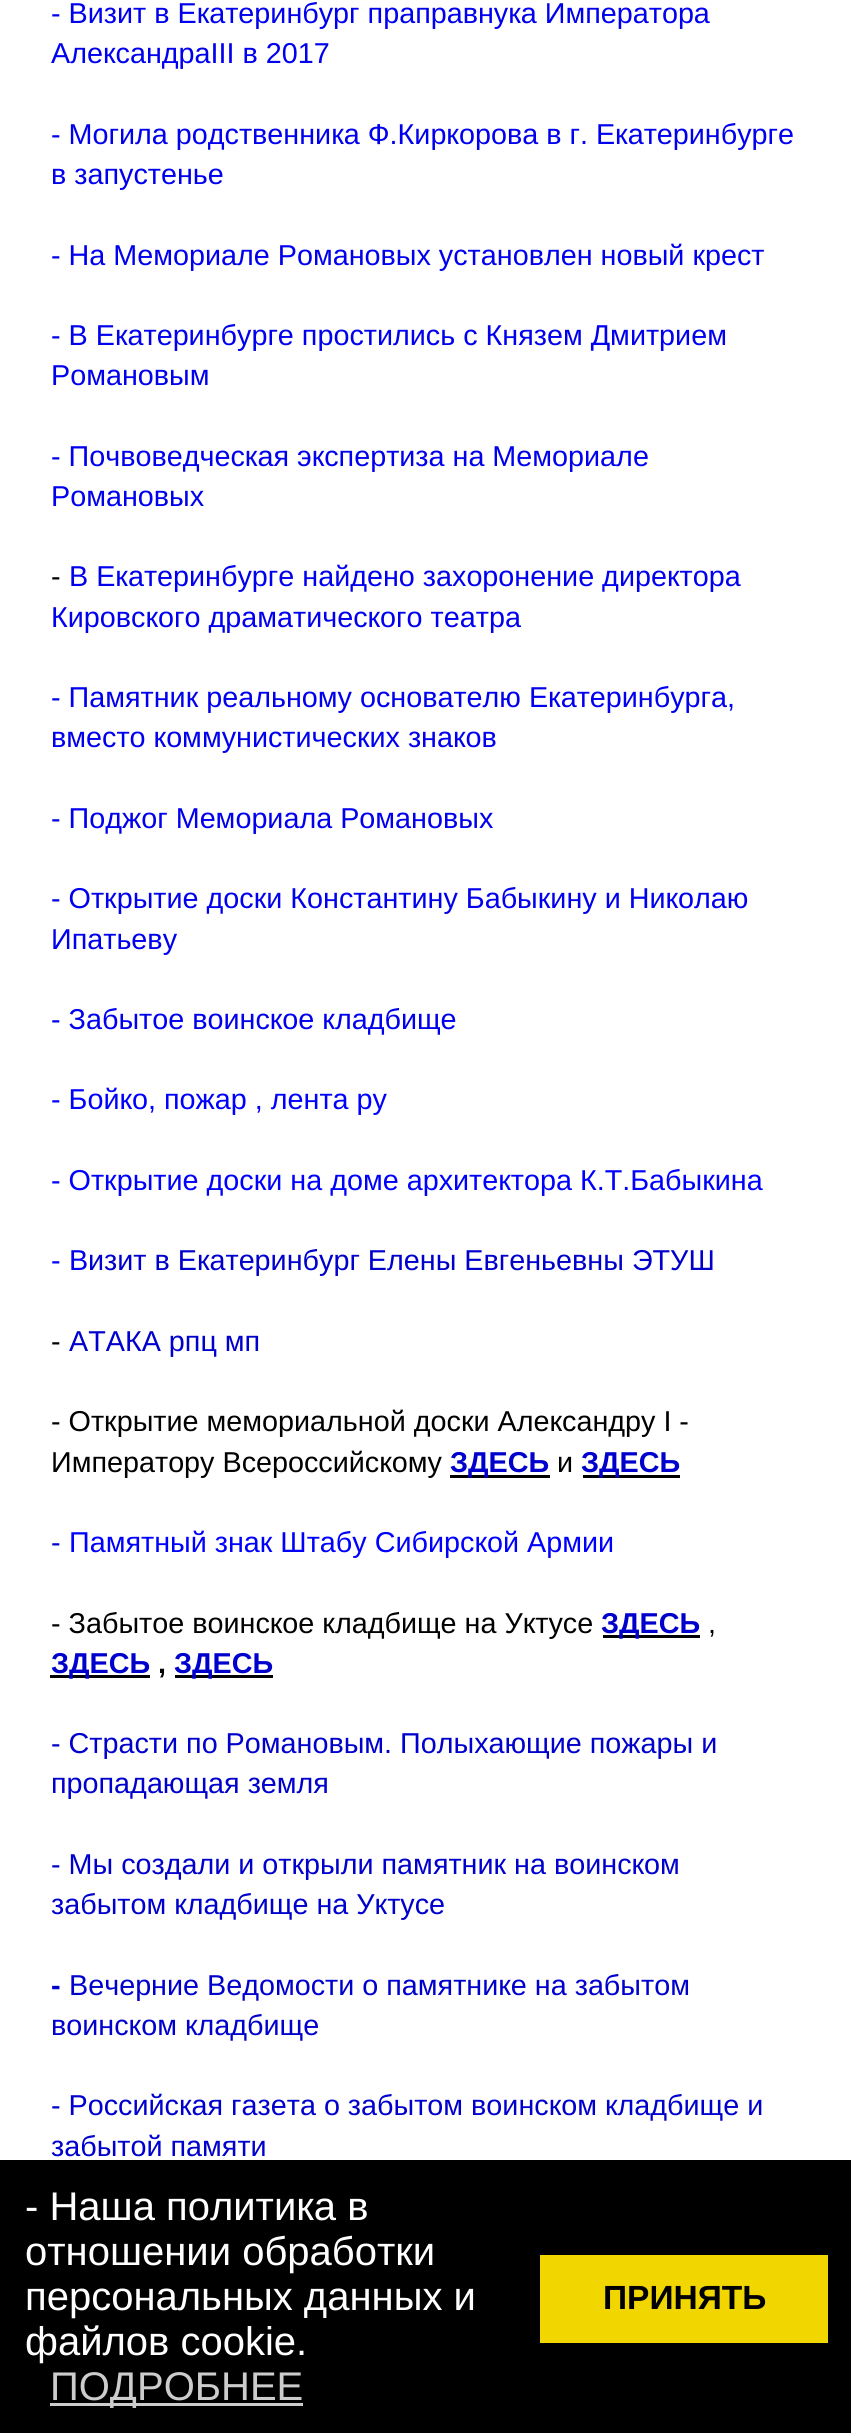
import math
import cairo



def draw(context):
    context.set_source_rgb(1, 1, 1)
    context.paint()
    context.set_source_rgb(0, 0, 0)
    context.rectangle(450, 1475, 100, 3)
    context.fill()
    context.rectangle(583, 1475, 97, 3)
    context.fill()
    context.rectangle(603, 1635, 97, 3)
    context.fill()
    context.rectangle(50, 1675, 100, 3)
    context.fill()
    context.rectangle(175, 1675, 98, 3)
    context.fill()
    context.rectangle(0, 2160, 851, 273)
    context.fill()
    context.set_source_rgb(204 / 255, 204 / 255, 204 / 255)
    context.rectangle(50, 2403, 253, 3)
    context.fill()
    context.set_source_rgb(241 / 255, 214 / 255, 0)
    context.rectangle(540, 2255, 288, 88)
    context.fill()
    context.select_font_face("Liberation Sans")
    context.set_font_size(28.75)
    context.set_source_rgb(0, 0, 238 / 255)
    context.move_to(51, 23)
    context.show_text("- Визит в Екатеринбург праправнука Императора")
    context.move_to(51, 63)
    context.show_text("АлександраIII в 2017")
    context.move_to(51, 144)
    context.show_text("- Могила родственника Ф.Киркорова в г. Екатеринбурге")
    context.move_to(51, 184)
    context.show_text("в запустенье")
    context.move_to(51, 265)
    context.show_text("- На Мемориале Романовых установлен новый крест")
    context.move_to(51, 345)
    context.show_text("- В Екатеринбурге простились с Князем Дмитрием")
    context.move_to(51, 385)
    context.show_text("Романовым")
    context.move_to(51, 466)
    context.show_text("- Почвоведческая экспертиза на Мемориале")
    context.move_to(51, 506)
    context.show_text("Романовых")
    context.set_source_rgb(0, 0, 0)
    context.move_to(51, 586)
    context.show_text("-")
    context.set_source_rgb(0, 0, 238 / 255)
    context.move_to(69, 586)
    context.show_text("В Екатеринбурге найдено захоронение директора")
    context.move_to(51, 627)
    context.show_text("Кировского драматического театра")
    context.move_to(51, 707)
    context.show_text("- Памятник реальному основателю Екатеринбурга,")
    context.move_to(51, 747)
    context.show_text("вместо коммунистических знаков")
    context.move_to(51, 828)
    context.show_text("- Поджог Мемориала Романовых")
    context.move_to(51, 908)
    context.show_text("- Открытие доски Константину Бабыкину и Николаю")
    context.move_to(51, 949)
    context.show_text("Ипатьеву")
    context.move_to(51, 1029)
    context.show_text("- Забытое воинское кладбище")
    context.set_source_rgb(0, 0, 1)
    context.move_to(51, 1109)
    context.show_text("- Бойко, пожар , лента ру")
    context.move_to(51, 1190)
    context.show_text("- Открытие доски на доме архитектора К.Т.Бабыкина")
    context.move_to(51, 1270)
    context.show_text("-")
    context.set_source_rgb(0, 0, 238 / 255)
    context.move_to(69, 1270)
    context.show_text("В")
    context.set_source_rgb(0, 0, 205 / 255)
    context.move_to(88, 1270)
    context.show_text("изит в Екатеринбург Елены Евгеньевны ЭТУШ")
    context.set_source_rgb(0, 0, 0)
    context.move_to(51, 1351)
    context.show_text("-")
    context.set_source_rgb(0, 0, 205 / 255)
    context.move_to(69, 1351)
    context.show_text("АТАКА рпц мп")
    context.set_source_rgb(0, 0, 0)
    context.move_to(51, 1431)
    context.show_text("- Открытие мемориальной доски Александру I -")
    context.move_to(51, 1472)
    context.show_text("Императору Всероссийскому")
    context.select_font_face("Liberation Sans", cairo.FontSlant.NORMAL, cairo.FontWeight.BOLD)
    context.set_source_rgb(0, 0, 205 / 255)
    context.move_to(450, 1472)
    context.show_text("ЗДЕСЬ")
    context.select_font_face("Liberation Sans")
    context.set_source_rgb(0, 0, 0)
    context.move_to(557, 1472)
    context.show_text("и")
    context.select_font_face("Liberation Sans", cairo.FontSlant.NORMAL, cairo.FontWeight.BOLD)
    context.set_source_rgb(0, 0, 205 / 255)
    context.move_to(581, 1472)
    context.show_text("ЗДЕСЬ")
    context.select_font_face("Liberation Sans")
    context.move_to(51, 1552)
    context.show_text("-")
    context.set_source_rgb(0, 0, 1)
    context.move_to(69, 1552)
    context.show_text("Памятный знак Штабу Сибирской Армии")
    context.set_source_rgb(0, 0, 0)
    context.move_to(51, 1633)
    context.show_text("- Забытое воинское кладбище на Уктусе")
    context.select_font_face("Liberation Sans", cairo.FontSlant.NORMAL, cairo.FontWeight.BOLD)
    context.set_source_rgb(0, 0, 205 / 255)
    context.move_to(601, 1633)
    context.show_text("ЗДЕСЬ")
    context.select_font_face("Liberation Sans")
    context.set_source_rgb(0, 0, 0)
    context.move_to(708, 1633)
    context.show_text(",")
    context.select_font_face("Liberation Sans", cairo.FontSlant.NORMAL, cairo.FontWeight.BOLD)
    context.set_source_rgb(0, 0, 205 / 255)
    context.move_to(51, 1673)
    context.show_text("ЗДЕСЬ")
    context.set_source_rgb(0, 0, 0)
    context.move_to(158, 1673)
    context.show_text(",")
    context.set_source_rgb(0, 0, 205 / 255)
    context.move_to(174, 1673)
    context.show_text("ЗДЕСЬ")
    context.select_font_face("Liberation Sans")
    context.move_to(51, 1753)
    context.show_text("- Страсти по Романовым. Полыхающие пожары и")
    context.move_to(51, 1793)
    context.show_text("пропадающая земля")
    context.move_to(51, 1874)
    context.show_text("- Мы создали и открыли памятник на воинском")
    context.move_to(51, 1914)
    context.show_text("забытом кладбище на Уктусе")
    context.select_font_face("Liberation Sans", cairo.FontSlant.NORMAL, cairo.FontWeight.BOLD)
    context.move_to(51, 1995)
    context.show_text("-")
    context.select_font_face("Liberation Sans")
    context.move_to(69, 1995)
    context.show_text("Вечерние Ведомости о памятнике на забытом")
    context.move_to(51, 2035)
    context.show_text("воинском кладбище")
    context.move_to(51, 2115)
    context.show_text("- Российская газета о забытом воинском кладбище и")
    context.move_to(51, 2156)
    context.show_text("забытой памяти")
    context.set_font_size(40)
    context.set_source_rgb(1, 1, 1)
    context.move_to(25, 2220)
    context.show_text("- Наша политика в")
    context.move_to(25, 2265)
    context.show_text("отношении обработки")
    context.move_to(25, 2310)
    context.show_text("персональных данных и")
    context.move_to(25, 2355)
    context.show_text("файлов cookie.")
    context.set_source_rgb(204 / 255, 204 / 255, 204 / 255)
    context.move_to(50, 2400)
    context.show_text("ПОДРОБНЕЕ")
    context.select_font_face("Liberation Sans", cairo.FontSlant.NORMAL, cairo.FontWeight.BOLD)
    context.set_font_size(33.5)
    context.set_source_rgb(0, 0, 0)
    context.move_to(603, 2309)
    context.show_text("ПРИНЯТЬ")


surface = cairo.ImageSurface(cairo.Format.RGB24, 851, 2433)
context = cairo.Context(surface)
options = cairo.FontOptions()
options.set_hint_metrics(cairo.HintMetrics.OFF)
options.set_hint_style(cairo.HintStyle.NONE)
context.set_font_options(options)
context.set_miter_limit(4)
draw(context)
surface.write_to_png("out.png")
